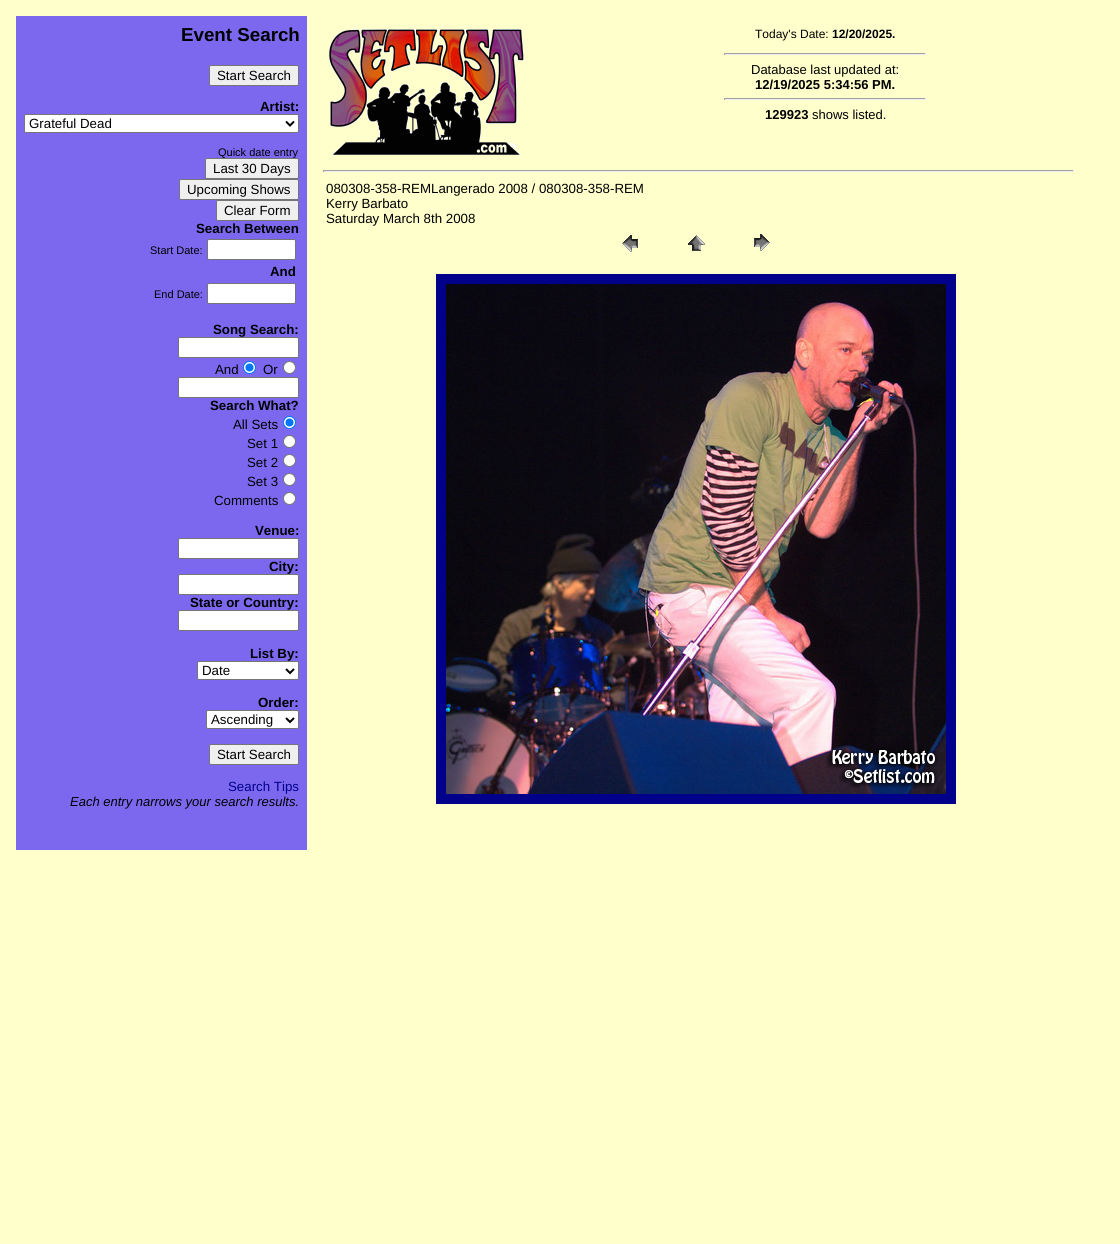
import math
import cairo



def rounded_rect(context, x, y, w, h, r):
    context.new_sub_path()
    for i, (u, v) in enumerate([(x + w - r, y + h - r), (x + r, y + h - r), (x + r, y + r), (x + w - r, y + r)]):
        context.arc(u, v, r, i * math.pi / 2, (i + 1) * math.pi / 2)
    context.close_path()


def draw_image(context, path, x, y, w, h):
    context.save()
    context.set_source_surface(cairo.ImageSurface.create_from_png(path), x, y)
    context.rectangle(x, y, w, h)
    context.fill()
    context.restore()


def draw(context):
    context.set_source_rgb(1, 1, 204 / 255)
    context.paint()
    context.set_source_rgb(123 / 255, 104 / 255, 238 / 255)
    context.rectangle(16, 16, 291, 834)
    context.fill()
    context.set_source_rgb(239 / 255, 239 / 255, 239 / 255)
    rounded_rect(context, 209.5, 65.5, 89, 20, 1.5)
    context.fill_preserve()
    context.set_source_rgb(118 / 255, 118 / 255, 118 / 255)
    context.set_line_width(1)
    context.stroke()
    context.set_source_rgb(1, 1, 1)
    rounded_rect(context, 24.5, 114.5, 274, 18, 1.5)
    context.fill_preserve()
    context.set_source_rgb(118 / 255, 118 / 255, 118 / 255)
    context.stroke()
    context.new_path()
    context.move_to(286, 121.5)
    context.line_to(290, 125.5)
    context.line_to(294, 121.5)
    context.set_source_rgb(0, 0, 0)
    context.set_line_width(2)
    context.stroke()
    context.set_source_rgb(239 / 255, 239 / 255, 239 / 255)
    rounded_rect(context, 179.5, 179.5, 119, 20, 1.5)
    context.fill_preserve()
    context.set_source_rgb(118 / 255, 118 / 255, 118 / 255)
    context.set_line_width(1)
    context.stroke()
    context.set_source_rgb(239 / 255, 239 / 255, 239 / 255)
    rounded_rect(context, 216.5, 200.5, 82, 20, 1.5)
    context.fill_preserve()
    context.set_source_rgb(118 / 255, 118 / 255, 118 / 255)
    context.stroke()
    context.set_source_rgb(1, 1, 1)
    rounded_rect(context, 207.5, 239.5, 88, 20, 1.5)
    context.fill_preserve()
    context.set_source_rgb(118 / 255, 118 / 255, 118 / 255)
    context.stroke()
    context.set_source_rgb(1, 1, 1)
    rounded_rect(context, 207.5, 283.5, 88, 20, 1.5)
    context.fill_preserve()
    context.set_source_rgb(118 / 255, 118 / 255, 118 / 255)
    context.stroke()
    context.set_source_rgb(1, 1, 1)
    rounded_rect(context, 178.5, 337.5, 120, 20, 1.5)
    context.fill_preserve()
    context.set_source_rgb(118 / 255, 118 / 255, 118 / 255)
    context.stroke()
    context.set_source_rgb(1, 1, 1)
    context.arc(249.5, 367.5, 6, 0, 2 * math.pi)
    context.fill_preserve()
    context.set_source_rgb(0, 117 / 255, 1)
    context.stroke()
    context.arc(249.5, 367.5, 4, 0, 2 * math.pi)
    context.fill()
    context.set_source_rgb(1, 1, 1)
    context.arc(289.5, 367.5, 6, 0, 2 * math.pi)
    context.fill_preserve()
    context.set_source_rgb(118 / 255, 118 / 255, 118 / 255)
    context.stroke()
    context.set_source_rgb(1, 1, 1)
    rounded_rect(context, 178.5, 377.5, 120, 20, 1.5)
    context.fill_preserve()
    context.set_source_rgb(118 / 255, 118 / 255, 118 / 255)
    context.stroke()
    context.set_source_rgb(1, 1, 1)
    context.arc(289.5, 422.5, 6, 0, 2 * math.pi)
    context.fill_preserve()
    context.set_source_rgb(0, 117 / 255, 1)
    context.stroke()
    context.arc(289.5, 422.5, 4, 0, 2 * math.pi)
    context.fill()
    context.set_source_rgb(1, 1, 1)
    context.arc(289.5, 441.5, 6, 0, 2 * math.pi)
    context.fill_preserve()
    context.set_source_rgb(118 / 255, 118 / 255, 118 / 255)
    context.stroke()
    context.set_source_rgb(1, 1, 1)
    context.arc(289.5, 460.5, 6, 0, 2 * math.pi)
    context.fill_preserve()
    context.set_source_rgb(118 / 255, 118 / 255, 118 / 255)
    context.stroke()
    context.set_source_rgb(1, 1, 1)
    context.arc(289.5, 479.5, 6, 0, 2 * math.pi)
    context.fill_preserve()
    context.set_source_rgb(118 / 255, 118 / 255, 118 / 255)
    context.stroke()
    context.set_source_rgb(1, 1, 1)
    context.arc(289.5, 498.5, 6, 0, 2 * math.pi)
    context.fill_preserve()
    context.set_source_rgb(118 / 255, 118 / 255, 118 / 255)
    context.stroke()
    context.set_source_rgb(1, 1, 1)
    rounded_rect(context, 178.5, 538.5, 120, 20, 1.5)
    context.fill_preserve()
    context.set_source_rgb(118 / 255, 118 / 255, 118 / 255)
    context.stroke()
    context.set_source_rgb(1, 1, 1)
    rounded_rect(context, 178.5, 574.5, 120, 20, 1.5)
    context.fill_preserve()
    context.set_source_rgb(118 / 255, 118 / 255, 118 / 255)
    context.stroke()
    context.set_source_rgb(1, 1, 1)
    rounded_rect(context, 178.5, 610.5, 120, 20, 1.5)
    context.fill_preserve()
    context.set_source_rgb(118 / 255, 118 / 255, 118 / 255)
    context.stroke()
    context.set_source_rgb(1, 1, 1)
    rounded_rect(context, 197.5, 661.5, 101, 18, 1.5)
    context.fill_preserve()
    context.set_source_rgb(118 / 255, 118 / 255, 118 / 255)
    context.stroke()
    context.new_path()
    context.move_to(286, 669)
    context.line_to(290, 673)
    context.line_to(294, 669)
    context.set_source_rgb(0, 0, 0)
    context.set_line_width(2)
    context.stroke()
    context.set_source_rgb(1, 1, 1)
    rounded_rect(context, 206.5, 710.5, 92, 18, 1.5)
    context.fill_preserve()
    context.set_source_rgb(118 / 255, 118 / 255, 118 / 255)
    context.set_line_width(1)
    context.stroke()
    context.new_path()
    context.move_to(286, 718)
    context.line_to(290, 722)
    context.line_to(294, 718)
    context.set_source_rgb(0, 0, 0)
    context.set_line_width(2)
    context.stroke()
    context.set_source_rgb(239 / 255, 239 / 255, 239 / 255)
    rounded_rect(context, 209.5, 744.5, 89, 20, 1.5)
    context.fill_preserve()
    context.set_source_rgb(118 / 255, 118 / 255, 118 / 255)
    context.set_line_width(1)
    context.stroke()
    draw_image(context, "images/1.png", 329, 29, 195, 127)
    context.set_source_rgb(159 / 255, 159 / 255, 159 / 255)
    context.rectangle(724, 53, 202, 1)
    context.fill()
    context.set_source_rgb(238 / 255, 238 / 255, 238 / 255)
    context.rectangle(925, 53, 1, 2)
    context.fill()
    context.rectangle(724, 54, 202, 1)
    context.fill()
    context.set_source_rgb(159 / 255, 159 / 255, 159 / 255)
    context.rectangle(724, 53, 1, 2)
    context.fill()
    context.rectangle(724, 98, 202, 1)
    context.fill()
    context.set_source_rgb(238 / 255, 238 / 255, 238 / 255)
    context.rectangle(925, 98, 1, 2)
    context.fill()
    context.rectangle(724, 99, 202, 1)
    context.fill()
    context.set_source_rgb(159 / 255, 159 / 255, 159 / 255)
    context.rectangle(724, 98, 1, 2)
    context.fill()
    context.rectangle(323, 170, 751, 1)
    context.fill()
    context.set_source_rgb(238 / 255, 238 / 255, 238 / 255)
    context.rectangle(1073, 170, 1, 2)
    context.fill()
    context.rectangle(323, 171, 751, 1)
    context.fill()
    context.set_source_rgb(159 / 255, 159 / 255, 159 / 255)
    context.rectangle(323, 170, 1, 2)
    context.fill()
    draw_image(context, "images/2.png", 622, 235, 16, 17)
    draw_image(context, "images/3.png", 688, 235, 17, 16)
    draw_image(context, "images/4.png", 754, 234, 16, 17)
    context.rectangle(441, 279, 510, 520)
    context.set_source_rgb(0, 0, 139 / 255)
    context.set_line_width(10)
    context.stroke()
    draw_image(context, "images/5.png", 446, 284, 500, 510)
    context.select_font_face("Liberation Sans", cairo.FontSlant.NORMAL, cairo.FontWeight.BOLD)
    context.set_font_size(18.75)
    context.set_source_rgb(0, 0, 0)
    context.move_to(181, 41)
    context.show_text("Event Search")
    context.select_font_face("Liberation Sans")
    context.set_font_size(13.3)
    context.move_to(217, 80)
    context.show_text("Start Search")
    context.select_font_face("Liberation Sans", cairo.FontSlant.NORMAL, cairo.FontWeight.BOLD)
    context.move_to(260, 111)
    context.show_text("Artist:")
    context.select_font_face("Liberation Sans")
    context.move_to(29, 128)
    context.show_text("Grateful Dead")
    context.set_font_size(11)
    context.move_to(218, 156)
    context.show_text("Quick date entry")
    context.set_source_rgb(239 / 255, 239 / 255, 239 / 255)
    rounded_rect(context, 205.5, 158.5, 93, 20, 1.5)
    context.fill_preserve()
    context.set_source_rgb(118 / 255, 118 / 255, 118 / 255)
    context.set_line_width(1)
    context.stroke()
    context.set_font_size(13.3)
    context.set_source_rgb(0, 0, 0)
    context.move_to(213, 173)
    context.show_text("Last 30 Days")
    context.move_to(187, 194)
    context.show_text("Upcoming Shows")
    context.move_to(224, 215)
    context.show_text("Clear Form")
    context.select_font_face("Liberation Sans", cairo.FontSlant.NORMAL, cairo.FontWeight.BOLD)
    context.move_to(196, 233)
    context.show_text("Search Between")
    context.select_font_face("Liberation Sans")
    context.set_font_size(11)
    context.move_to(150, 254)
    context.show_text("Start Date:")
    context.select_font_face("Liberation Sans", cairo.FontSlant.NORMAL, cairo.FontWeight.BOLD)
    context.set_font_size(13.3)
    context.move_to(270, 276)
    context.show_text("And")
    context.select_font_face("Liberation Sans")
    context.set_font_size(11)
    context.move_to(154, 298)
    context.show_text("End Date:")
    context.select_font_face("Liberation Sans", cairo.FontSlant.NORMAL, cairo.FontWeight.BOLD)
    context.set_font_size(13.3)
    context.move_to(213, 334)
    context.show_text("Song Search:")
    context.select_font_face("Liberation Sans")
    context.move_to(215, 374)
    context.show_text("And")
    context.move_to(263, 374)
    context.show_text("Or")
    context.select_font_face("Liberation Sans", cairo.FontSlant.NORMAL, cairo.FontWeight.BOLD)
    context.move_to(210, 410)
    context.show_text("Search What?")
    context.select_font_face("Liberation Sans")
    context.move_to(233, 429)
    context.show_text("All Sets")
    context.move_to(247, 448)
    context.show_text("Set 1")
    context.move_to(247, 467)
    context.show_text("Set 2")
    context.move_to(247, 486)
    context.show_text("Set 3")
    context.move_to(214, 505)
    context.show_text("Comments")
    context.select_font_face("Liberation Sans", cairo.FontSlant.NORMAL, cairo.FontWeight.BOLD)
    context.move_to(255, 535)
    context.show_text("Venue:")
    context.move_to(269, 571)
    context.show_text("City:")
    context.move_to(190, 607)
    context.show_text("State or Country:")
    context.move_to(250, 658)
    context.show_text("List By:")
    context.select_font_face("Liberation Sans")
    context.move_to(202, 675)
    context.show_text("Date")
    context.select_font_face("Liberation Sans", cairo.FontSlant.NORMAL, cairo.FontWeight.BOLD)
    context.move_to(258, 707)
    context.show_text("Order:")
    context.select_font_face("Liberation Sans")
    context.move_to(211, 724)
    context.show_text("Ascending")
    context.move_to(217, 759)
    context.show_text("Start Search")
    context.set_source_rgb(0, 0, 139 / 255)
    context.move_to(228, 791)
    context.show_text("Search Tips")
    context.select_font_face("Liberation Sans", cairo.FontSlant.ITALIC)
    context.set_font_size(13)
    context.set_source_rgb(0, 0, 0)
    context.move_to(70, 806)
    context.show_text("Each entry narrows your search results.")
    context.select_font_face("Liberation Sans")
    context.set_font_size(12)
    context.move_to(755, 38)
    context.show_text("Today's Date:")
    context.select_font_face("Liberation Sans", cairo.FontSlant.NORMAL, cairo.FontWeight.BOLD)
    context.move_to(832, 38)
    context.show_text("12/20/2025.")
    context.select_font_face("Liberation Sans")
    context.set_font_size(13)
    context.move_to(751, 74)
    context.show_text("Database last updated at:")
    context.select_font_face("Liberation Sans", cairo.FontSlant.NORMAL, cairo.FontWeight.BOLD)
    context.move_to(755, 89)
    context.show_text("12/19/2025 5:34:56 PM.")
    context.move_to(765, 119)
    context.show_text("129923")
    context.select_font_face("Liberation Sans")
    context.move_to(812, 119)
    context.show_text("shows listed.")
    context.set_font_size(13.3)
    context.move_to(326, 193)
    context.show_text("080308-358-REMLangerado 2008 / 080308-358-REM")
    context.move_to(326, 208)
    context.show_text("Kerry Barbato")
    context.move_to(326, 223)
    context.show_text("Saturday March 8th 2008")


surface = cairo.ImageSurface(cairo.Format.RGB24, 1120, 1244)
context = cairo.Context(surface)
options = cairo.FontOptions()
options.set_hint_metrics(cairo.HintMetrics.OFF)
options.set_hint_style(cairo.HintStyle.NONE)
context.set_font_options(options)
context.set_miter_limit(4)
draw(context)
surface.write_to_png("out.png")
